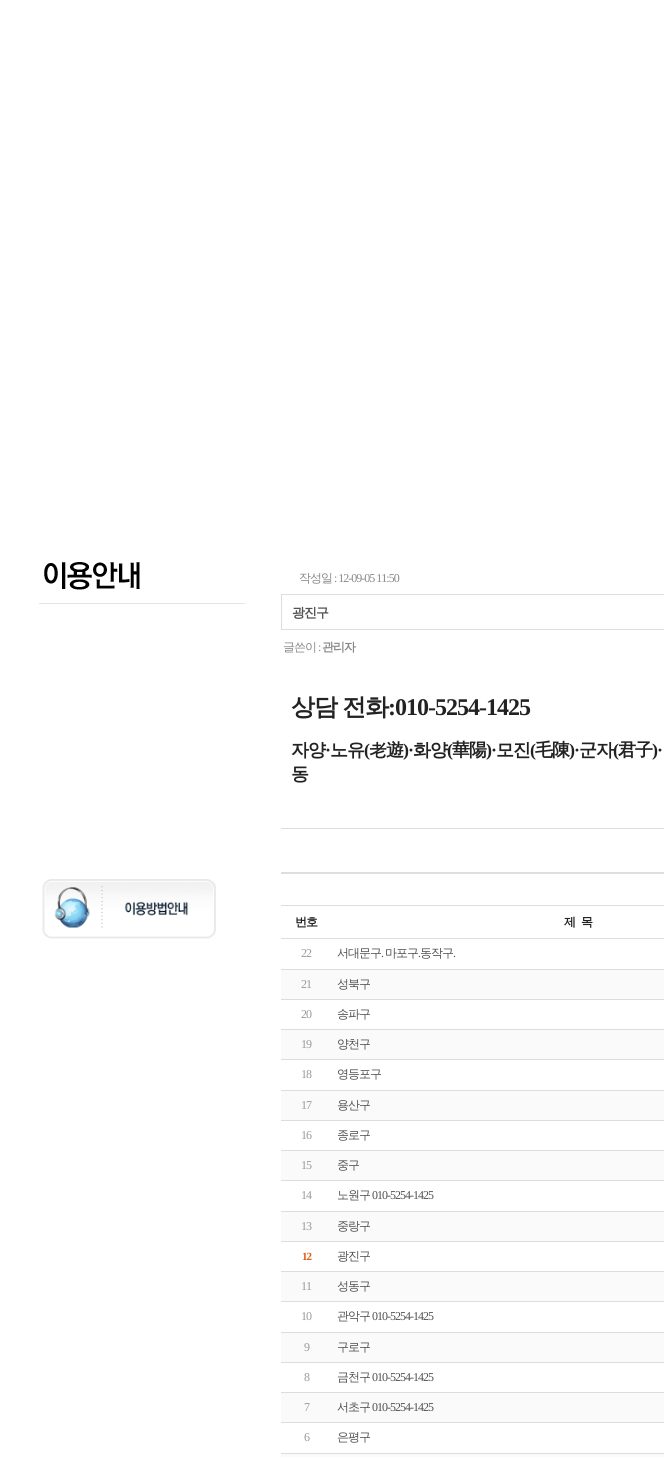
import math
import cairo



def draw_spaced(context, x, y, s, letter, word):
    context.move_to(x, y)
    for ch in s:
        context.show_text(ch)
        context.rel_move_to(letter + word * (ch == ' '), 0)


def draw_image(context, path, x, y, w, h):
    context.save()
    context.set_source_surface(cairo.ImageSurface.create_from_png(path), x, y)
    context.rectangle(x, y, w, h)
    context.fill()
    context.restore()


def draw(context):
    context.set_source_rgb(1, 1, 1)
    context.paint()
    draw_image(context, "images/1.png", 39, 562, 206, 42)
    draw_image(context, "images/2.png", 42, 879, 174, 60)
    context.rectangle(281.5, 594.5, 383, 35)
    context.set_source_rgb(221 / 255, 221 / 255, 221 / 255)
    context.set_line_width(1)
    context.stroke()
    context.rectangle(281, 828, 383, 1)
    context.fill()
    context.set_source_rgb(222 / 255, 222 / 255, 222 / 255)
    context.rectangle(281, 872, 383, 2)
    context.fill()
    context.set_source_rgb(221 / 255, 221 / 255, 221 / 255)
    context.rectangle(281, 905, 383, 1)
    context.fill()
    context.rectangle(281, 938, 383, 1)
    context.fill()
    context.rectangle(281, 969, 383, 1)
    context.fill()
    context.set_source_rgb(250 / 255, 250 / 255, 250 / 255)
    context.rectangle(281, 970, 383, 29)
    context.fill()
    context.set_source_rgb(221 / 255, 221 / 255, 221 / 255)
    context.rectangle(281, 999, 383, 1)
    context.fill()
    context.rectangle(281, 1029, 383, 1)
    context.fill()
    context.set_source_rgb(250 / 255, 250 / 255, 250 / 255)
    context.rectangle(281, 1030, 383, 29)
    context.fill()
    context.set_source_rgb(221 / 255, 221 / 255, 221 / 255)
    context.rectangle(281, 1059, 383, 1)
    context.fill()
    context.rectangle(281, 1090, 383, 1)
    context.fill()
    context.set_source_rgb(250 / 255, 250 / 255, 250 / 255)
    context.rectangle(281, 1091, 383, 29)
    context.fill()
    context.set_source_rgb(221 / 255, 221 / 255, 221 / 255)
    context.rectangle(281, 1120, 383, 1)
    context.fill()
    context.rectangle(281, 1150, 383, 1)
    context.fill()
    context.set_source_rgb(250 / 255, 250 / 255, 250 / 255)
    context.rectangle(281, 1151, 383, 29)
    context.fill()
    context.set_source_rgb(221 / 255, 221 / 255, 221 / 255)
    context.rectangle(281, 1180, 383, 1)
    context.fill()
    context.rectangle(281, 1211, 383, 1)
    context.fill()
    context.set_source_rgb(250 / 255, 250 / 255, 250 / 255)
    context.rectangle(281, 1212, 383, 29)
    context.fill()
    context.set_source_rgb(221 / 255, 221 / 255, 221 / 255)
    context.rectangle(281, 1241, 383, 1)
    context.fill()
    context.rectangle(281, 1271, 383, 1)
    context.fill()
    context.set_source_rgb(250 / 255, 250 / 255, 250 / 255)
    context.rectangle(281, 1272, 383, 29)
    context.fill()
    context.set_source_rgb(221 / 255, 221 / 255, 221 / 255)
    context.rectangle(281, 1301, 383, 1)
    context.fill()
    context.rectangle(281, 1332, 383, 1)
    context.fill()
    context.set_source_rgb(250 / 255, 250 / 255, 250 / 255)
    context.rectangle(281, 1333, 383, 29)
    context.fill()
    context.set_source_rgb(221 / 255, 221 / 255, 221 / 255)
    context.rectangle(281, 1362, 383, 1)
    context.fill()
    context.rectangle(281, 1392, 383, 1)
    context.fill()
    context.set_source_rgb(250 / 255, 250 / 255, 250 / 255)
    context.rectangle(281, 1393, 383, 29)
    context.fill()
    context.set_source_rgb(221 / 255, 221 / 255, 221 / 255)
    context.rectangle(281, 1422, 383, 1)
    context.fill()
    context.rectangle(281, 1453, 383, 1)
    context.fill()
    context.set_source_rgb(250 / 255, 250 / 255, 250 / 255)
    context.rectangle(281, 1454, 383, 3)
    context.fill()
    context.select_font_face("WenQuanYi Zen Hei Medium")
    context.set_font_size(12)
    context.set_source_rgb(136 / 255, 136 / 255, 136 / 255)
    draw_spaced(context, 299, 582, "작성일", -1, 0)
    context.select_font_face("Liberation Serif")
    draw_spaced(context, 334, 582, ": 12-09-05 11:50", -1, 0)
    context.select_font_face("WenQuanYi Zen Hei", cairo.FontSlant.NORMAL, cairo.FontWeight.BOLD)
    context.set_font_size(13)
    context.set_source_rgb(80 / 255, 80 / 255, 80 / 255)
    draw_spaced(context, 292, 617, "광진구", -1, 0)
    context.select_font_face("WenQuanYi Zen Hei Medium")
    context.set_font_size(12)
    context.set_source_rgb(136 / 255, 136 / 255, 136 / 255)
    draw_spaced(context, 283, 651, "글쓴이", -1, 0)
    context.select_font_face("Liberation Serif")
    draw_spaced(context, 318, 651, ":", -1, 0)
    context.select_font_face("WenQuanYi Zen Hei", cairo.FontSlant.NORMAL, cairo.FontWeight.BOLD)
    draw_spaced(context, 322, 651, "관리자", -1, 0)
    context.set_font_size(24)
    context.set_source_rgb(34 / 255, 34 / 255, 34 / 255)
    draw_spaced(context, 291, 715, "상담 전화", -1, -1)
    context.select_font_face("Liberation Serif", cairo.FontSlant.NORMAL, cairo.FontWeight.BOLD)
    draw_spaced(context, 388, 715, ":010-5254-1425", -1, 0)
    context.select_font_face("WenQuanYi Zen Hei", cairo.FontSlant.NORMAL, cairo.FontWeight.BOLD)
    context.set_font_size(18)
    draw_spaced(context, 291, 756, "자양", -1, 0)
    context.select_font_face("Liberation Serif", cairo.FontSlant.NORMAL, cairo.FontWeight.BOLD)
    draw_spaced(context, 325, 756, "·", -1, 0)
    context.select_font_face("WenQuanYi Zen Hei", cairo.FontSlant.NORMAL, cairo.FontWeight.BOLD)
    draw_spaced(context, 330, 756, "노유", -1, 0)
    context.select_font_face("Liberation Serif", cairo.FontSlant.NORMAL, cairo.FontWeight.BOLD)
    draw_spaced(context, 364, 756, "(", -1, 0)
    context.select_font_face("WenQuanYi Zen Hei", cairo.FontSlant.NORMAL, cairo.FontWeight.BOLD)
    draw_spaced(context, 369, 756, "老遊", -1, 0)
    context.select_font_face("Liberation Serif", cairo.FontSlant.NORMAL, cairo.FontWeight.BOLD)
    draw_spaced(context, 403, 756, ")·", -1, 0)
    context.select_font_face("WenQuanYi Zen Hei", cairo.FontSlant.NORMAL, cairo.FontWeight.BOLD)
    draw_spaced(context, 413, 756, "화양", -1, 0)
    context.select_font_face("Liberation Serif", cairo.FontSlant.NORMAL, cairo.FontWeight.BOLD)
    draw_spaced(context, 447, 756, "(", -1, 0)
    context.select_font_face("WenQuanYi Zen Hei", cairo.FontSlant.NORMAL, cairo.FontWeight.BOLD)
    draw_spaced(context, 452, 756, "華陽", -1, 0)
    context.select_font_face("Liberation Serif", cairo.FontSlant.NORMAL, cairo.FontWeight.BOLD)
    draw_spaced(context, 486, 756, ")·", -1, 0)
    context.select_font_face("WenQuanYi Zen Hei", cairo.FontSlant.NORMAL, cairo.FontWeight.BOLD)
    draw_spaced(context, 496, 756, "모진", -1, 0)
    context.select_font_face("Liberation Serif", cairo.FontSlant.NORMAL, cairo.FontWeight.BOLD)
    draw_spaced(context, 530, 756, "(", -1, 0)
    context.select_font_face("WenQuanYi Zen Hei", cairo.FontSlant.NORMAL, cairo.FontWeight.BOLD)
    draw_spaced(context, 535, 756, "毛陳", -1, 0)
    context.select_font_face("Liberation Serif", cairo.FontSlant.NORMAL, cairo.FontWeight.BOLD)
    draw_spaced(context, 569, 756, ")·", -1, 0)
    context.select_font_face("WenQuanYi Zen Hei", cairo.FontSlant.NORMAL, cairo.FontWeight.BOLD)
    draw_spaced(context, 579, 756, "군자", -1, 0)
    context.select_font_face("Liberation Serif", cairo.FontSlant.NORMAL, cairo.FontWeight.BOLD)
    draw_spaced(context, 613, 756, "(", -1, 0)
    context.select_font_face("WenQuanYi Zen Hei", cairo.FontSlant.NORMAL, cairo.FontWeight.BOLD)
    draw_spaced(context, 618, 756, "君子", -1, 0)
    context.select_font_face("Liberation Serif", cairo.FontSlant.NORMAL, cairo.FontWeight.BOLD)
    draw_spaced(context, 652, 756, ")·", -1, 0)
    context.select_font_face("WenQuanYi Zen Hei", cairo.FontSlant.NORMAL, cairo.FontWeight.BOLD)
    draw_spaced(context, 291, 780, "동", -1, 0)
    context.set_font_size(12)
    draw_spaced(context, 295, 926, "번호", -1, 0)
    draw_spaced(context, 564, 926, "제", -1, 0)
    draw_spaced(context, 581, 926, "목", -1, 0)
    context.select_font_face("Liberation Serif")
    context.set_source_rgb(153 / 255, 153 / 255, 153 / 255)
    draw_spaced(context, 301, 957, "22", -1, 0)
    context.select_font_face("WenQuanYi Zen Hei Medium")
    context.set_source_rgb(80 / 255, 80 / 255, 80 / 255)
    draw_spaced(context, 337, 957, "서대문구", -1, 0)
    context.select_font_face("Liberation Serif")
    draw_spaced(context, 381, 957, ".", -1, 0)
    context.select_font_face("WenQuanYi Zen Hei Medium")
    draw_spaced(context, 385, 957, "마포구", -1, 0)
    context.select_font_face("Liberation Serif")
    draw_spaced(context, 418, 957, ".", -1, 0)
    context.select_font_face("WenQuanYi Zen Hei Medium")
    draw_spaced(context, 420, 957, "동작구", -1, 0)
    context.select_font_face("Liberation Serif")
    draw_spaced(context, 453, 957, ".", -1, 0)
    context.set_source_rgb(153 / 255, 153 / 255, 153 / 255)
    draw_spaced(context, 301, 988, "21", -1, 0)
    context.select_font_face("WenQuanYi Zen Hei Medium")
    context.set_source_rgb(80 / 255, 80 / 255, 80 / 255)
    draw_spaced(context, 337, 988, "성북구", -1, 0)
    context.select_font_face("Liberation Serif")
    context.set_source_rgb(153 / 255, 153 / 255, 153 / 255)
    draw_spaced(context, 301, 1018, "20", -1, 0)
    context.select_font_face("WenQuanYi Zen Hei Medium")
    context.set_source_rgb(80 / 255, 80 / 255, 80 / 255)
    draw_spaced(context, 337, 1018, "송파구", -1, 0)
    context.select_font_face("Liberation Serif")
    context.set_source_rgb(153 / 255, 153 / 255, 153 / 255)
    draw_spaced(context, 301, 1048, "19", -1, 0)
    context.select_font_face("WenQuanYi Zen Hei Medium")
    context.set_source_rgb(80 / 255, 80 / 255, 80 / 255)
    draw_spaced(context, 337, 1048, "양천구", -1, 0)
    context.select_font_face("Liberation Serif")
    context.set_source_rgb(153 / 255, 153 / 255, 153 / 255)
    draw_spaced(context, 301, 1078, "18", -1, 0)
    context.select_font_face("WenQuanYi Zen Hei Medium")
    context.set_source_rgb(80 / 255, 80 / 255, 80 / 255)
    draw_spaced(context, 337, 1078, "영등포구", -1, 0)
    context.select_font_face("Liberation Serif")
    context.set_source_rgb(153 / 255, 153 / 255, 153 / 255)
    draw_spaced(context, 301, 1109, "17", -1, 0)
    context.select_font_face("WenQuanYi Zen Hei Medium")
    context.set_source_rgb(80 / 255, 80 / 255, 80 / 255)
    draw_spaced(context, 337, 1109, "용산구", -1, 0)
    context.select_font_face("Liberation Serif")
    context.set_source_rgb(153 / 255, 153 / 255, 153 / 255)
    draw_spaced(context, 301, 1139, "16", -1, 0)
    context.select_font_face("WenQuanYi Zen Hei Medium")
    context.set_source_rgb(80 / 255, 80 / 255, 80 / 255)
    draw_spaced(context, 337, 1139, "종로구", -1, 0)
    context.select_font_face("Liberation Serif")
    context.set_source_rgb(153 / 255, 153 / 255, 153 / 255)
    draw_spaced(context, 301, 1169, "15", -1, 0)
    context.select_font_face("WenQuanYi Zen Hei Medium")
    context.set_source_rgb(80 / 255, 80 / 255, 80 / 255)
    draw_spaced(context, 337, 1169, "중구", -1, 0)
    context.select_font_face("Liberation Serif")
    context.set_source_rgb(153 / 255, 153 / 255, 153 / 255)
    draw_spaced(context, 301, 1199, "14", -1, 0)
    context.select_font_face("WenQuanYi Zen Hei Medium")
    context.set_source_rgb(80 / 255, 80 / 255, 80 / 255)
    draw_spaced(context, 337, 1199, "노원구", -1, 0)
    context.select_font_face("Liberation Serif")
    draw_spaced(context, 372, 1199, "010-5254-1425", -1, 0)
    context.set_source_rgb(153 / 255, 153 / 255, 153 / 255)
    draw_spaced(context, 301, 1230, "13", -1, 0)
    context.select_font_face("WenQuanYi Zen Hei Medium")
    context.set_source_rgb(80 / 255, 80 / 255, 80 / 255)
    draw_spaced(context, 337, 1230, "중랑구", -1, 0)
    context.select_font_face("Liberation Serif", cairo.FontSlant.NORMAL, cairo.FontWeight.BOLD)
    context.set_font_size(11)
    context.set_source_rgb(225 / 255, 89 / 255, 22 / 255)
    draw_spaced(context, 302, 1260, "12", -1, 0)
    context.select_font_face("WenQuanYi Zen Hei Medium")
    context.set_font_size(12)
    context.set_source_rgb(80 / 255, 80 / 255, 80 / 255)
    draw_spaced(context, 337, 1260, "광진구", -1, 0)
    context.select_font_face("Liberation Serif")
    context.set_source_rgb(153 / 255, 153 / 255, 153 / 255)
    draw_spaced(context, 301, 1290, "11", -1, 0)
    context.select_font_face("WenQuanYi Zen Hei Medium")
    context.set_source_rgb(80 / 255, 80 / 255, 80 / 255)
    draw_spaced(context, 337, 1290, "성동구", -1, 0)
    context.select_font_face("Liberation Serif")
    context.set_source_rgb(153 / 255, 153 / 255, 153 / 255)
    draw_spaced(context, 301, 1320, "10", -1, 0)
    context.select_font_face("WenQuanYi Zen Hei Medium")
    context.set_source_rgb(80 / 255, 80 / 255, 80 / 255)
    draw_spaced(context, 337, 1320, "관악구", -1, 0)
    context.select_font_face("Liberation Serif")
    draw_spaced(context, 372, 1320, "010-5254-1425", -1, 0)
    context.set_source_rgb(153 / 255, 153 / 255, 153 / 255)
    draw_spaced(context, 304, 1351, "9", -1, 0)
    context.select_font_face("WenQuanYi Zen Hei Medium")
    context.set_source_rgb(80 / 255, 80 / 255, 80 / 255)
    draw_spaced(context, 337, 1351, "구로구", -1, 0)
    context.select_font_face("Liberation Serif")
    context.set_source_rgb(153 / 255, 153 / 255, 153 / 255)
    draw_spaced(context, 304, 1381, "8", -1, 0)
    context.select_font_face("WenQuanYi Zen Hei Medium")
    context.set_source_rgb(80 / 255, 80 / 255, 80 / 255)
    draw_spaced(context, 337, 1381, "금천구", -1, 0)
    context.select_font_face("Liberation Serif")
    draw_spaced(context, 372, 1381, "010-5254-1425", -1, 0)
    context.set_source_rgb(153 / 255, 153 / 255, 153 / 255)
    draw_spaced(context, 304, 1411, "7", -1, 0)
    context.select_font_face("WenQuanYi Zen Hei Medium")
    context.set_source_rgb(80 / 255, 80 / 255, 80 / 255)
    draw_spaced(context, 337, 1411, "서초구", -1, 0)
    context.select_font_face("Liberation Serif")
    draw_spaced(context, 372, 1411, "010-5254-1425", -1, 0)
    context.set_source_rgb(153 / 255, 153 / 255, 153 / 255)
    draw_spaced(context, 304, 1441, "6", -1, 0)
    context.select_font_face("WenQuanYi Zen Hei Medium")
    context.set_source_rgb(80 / 255, 80 / 255, 80 / 255)
    draw_spaced(context, 337, 1441, "은평구", -1, 0)


surface = cairo.ImageSurface(cairo.Format.RGB24, 664, 1457)
context = cairo.Context(surface)
options = cairo.FontOptions()
options.set_hint_metrics(cairo.HintMetrics.OFF)
options.set_hint_style(cairo.HintStyle.NONE)
context.set_font_options(options)
context.set_miter_limit(4)
draw(context)
surface.write_to_png("out.png")
